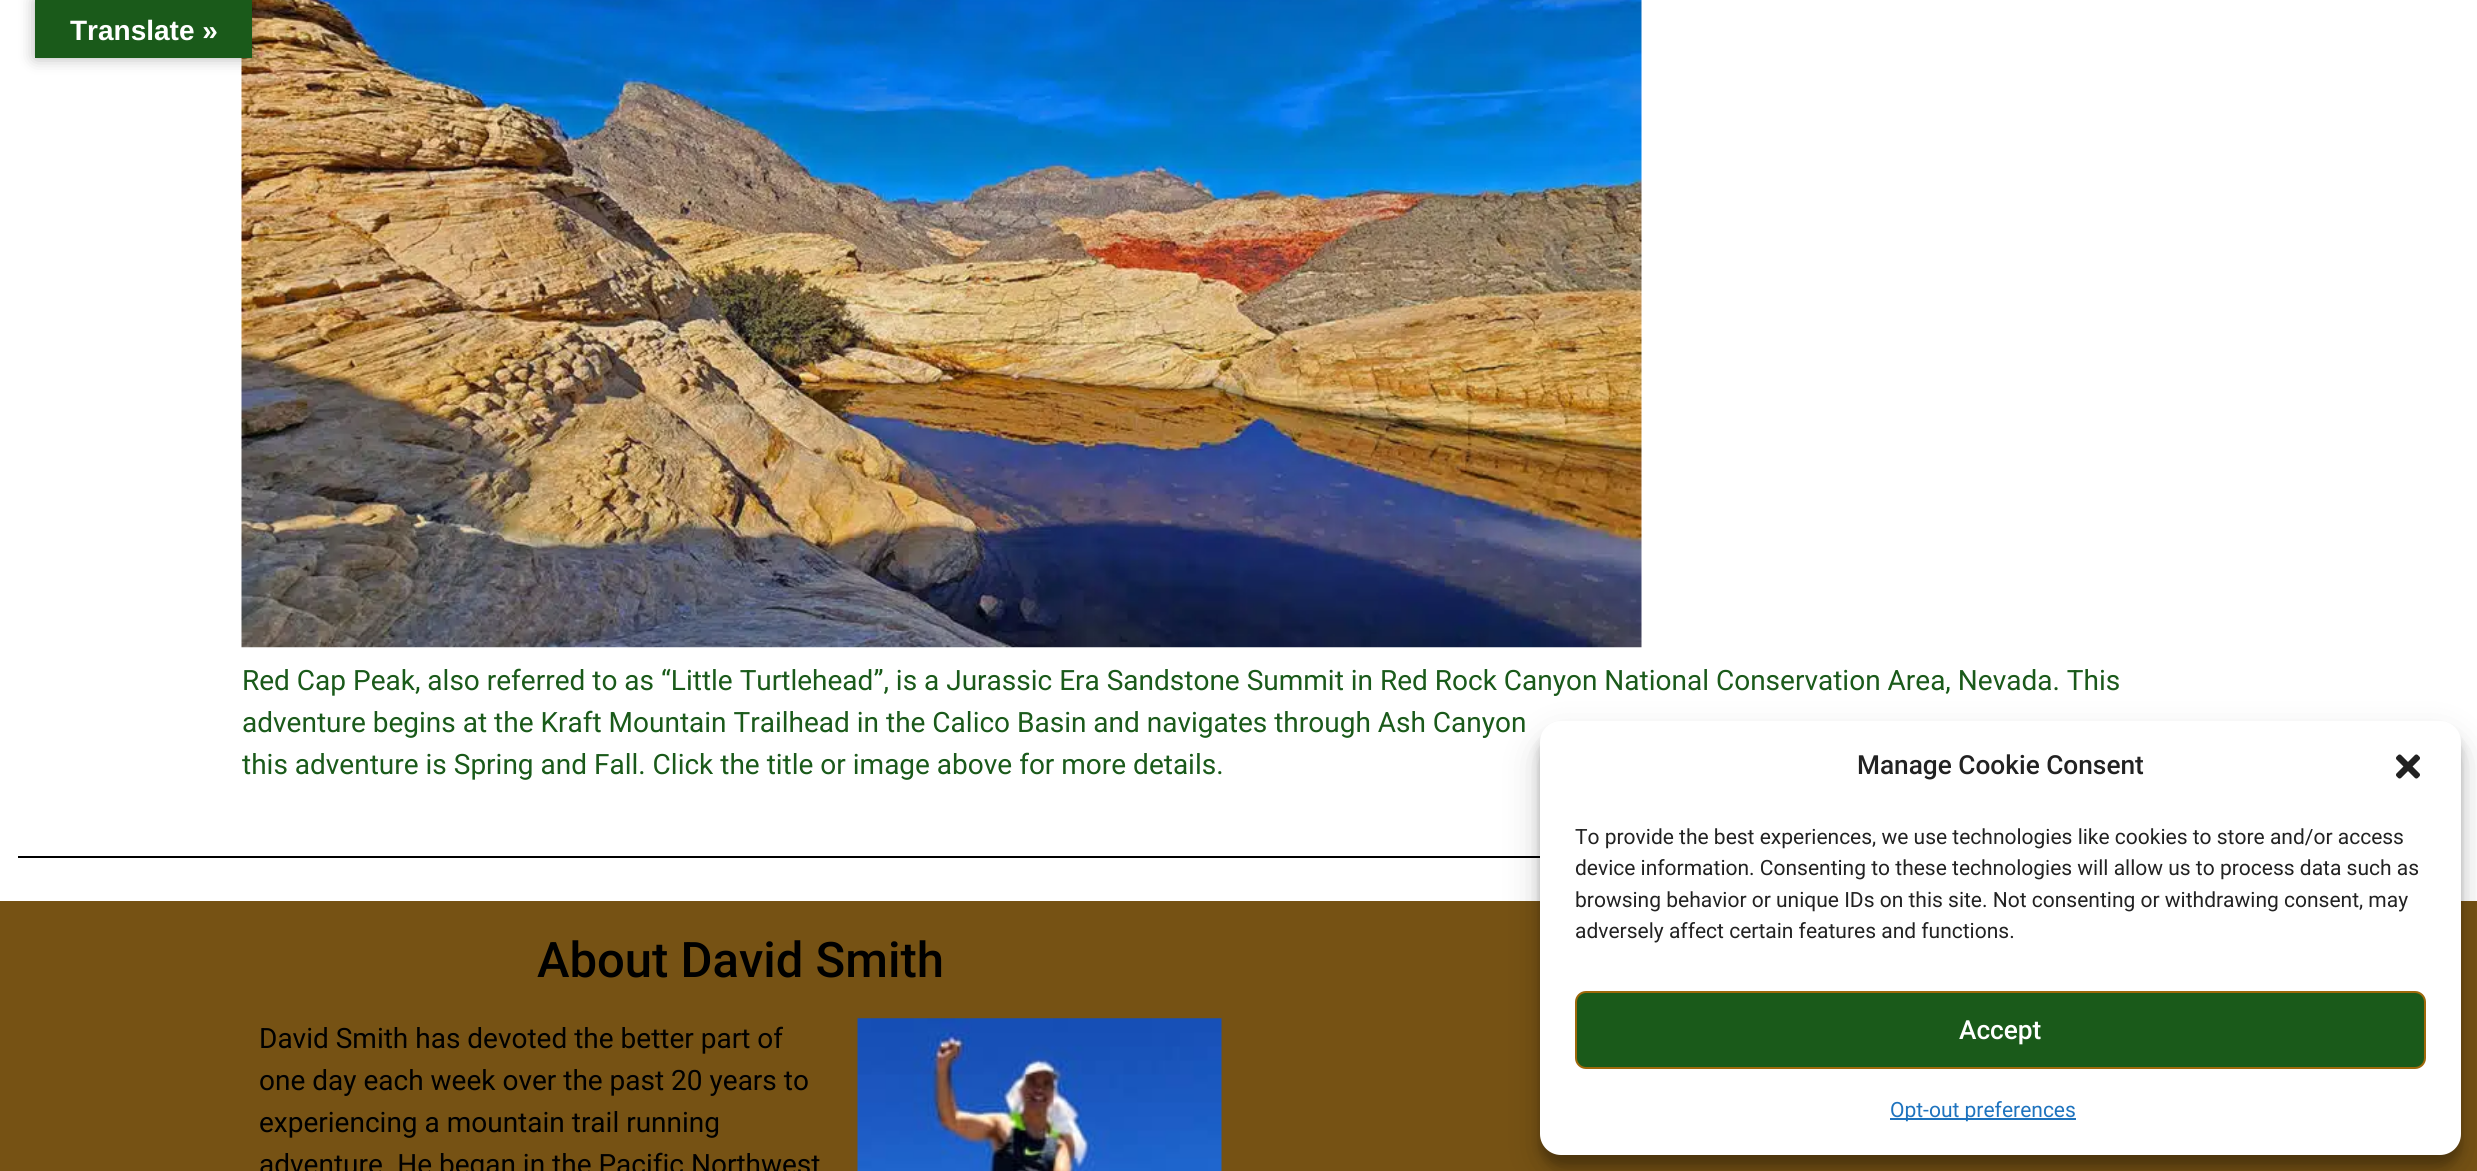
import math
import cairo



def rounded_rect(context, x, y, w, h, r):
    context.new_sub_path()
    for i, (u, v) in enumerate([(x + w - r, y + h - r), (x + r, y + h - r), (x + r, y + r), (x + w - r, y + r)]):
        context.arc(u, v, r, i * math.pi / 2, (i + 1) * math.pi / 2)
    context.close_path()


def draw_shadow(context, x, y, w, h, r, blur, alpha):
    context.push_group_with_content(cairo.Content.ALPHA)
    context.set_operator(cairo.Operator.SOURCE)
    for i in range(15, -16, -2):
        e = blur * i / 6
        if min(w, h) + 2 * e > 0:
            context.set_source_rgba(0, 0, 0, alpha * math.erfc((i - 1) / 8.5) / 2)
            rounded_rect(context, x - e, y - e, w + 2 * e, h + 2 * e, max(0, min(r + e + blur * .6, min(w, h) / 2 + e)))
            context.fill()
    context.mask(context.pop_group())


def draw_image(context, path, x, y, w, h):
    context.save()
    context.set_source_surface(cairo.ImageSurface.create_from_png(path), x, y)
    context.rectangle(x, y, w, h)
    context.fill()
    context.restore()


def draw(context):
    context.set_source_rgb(1, 1, 1)
    context.paint()
    draw_image(context, "images/1.png", 241, 0, 1401, 648)
    context.set_source_rgb(0, 0, 0)
    draw_shadow(context, 35, 0, 217, 58, 0, 8, 0.3)
    context.set_source_rgb(26 / 255, 90 / 255, 26 / 255)
    context.rectangle(35, 0, 217, 58)
    context.fill()
    context.set_source_rgb(0, 0, 0)
    context.rectangle(18, 856, 1522, 2)
    context.fill()
    context.set_source_rgb(118 / 255, 82 / 255, 20 / 255)
    context.rectangle(0, 901, 2477, 270)
    context.fill()
    draw_image(context, "images/2.png", 857, 1018, 365, 153)
    context.set_source_rgb(0, 0, 0)
    draw_shadow(context, 1540, 732, 921, 434, 21, 5, 0.23)
    draw_shadow(context, 1540, 739, 921, 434, 21, 17.5, 0.19)
    context.set_source_rgb(1, 1, 1)
    rounded_rect(context, 1540, 721, 921, 434, 21)
    context.fill()
    draw_image(context, "images/3.png", 2396, 754, 24, 25)
    context.set_source_rgb(26 / 255, 90 / 255, 26 / 255)
    rounded_rect(context, 1576, 992, 849, 76, 10)
    context.fill_preserve()
    context.set_source_rgb(159 / 255, 104 / 255, 11 / 255)
    context.stroke()
    context.set_source_rgb(30 / 255, 115 / 255, 190 / 255)
    context.rectangle(1890, 1118, 186, 2)
    context.fill()
    context.select_font_face("Liberation Sans", cairo.FontSlant.NORMAL, cairo.FontWeight.BOLD)
    context.set_font_size(28)
    context.set_source_rgb(1, 1, 1)
    context.move_to(70, 40)
    context.show_text("Translate »")
    context.select_font_face("Roboto")
    context.set_source_rgb(26 / 255, 90 / 255, 26 / 255)
    context.move_to(242, 690)
    context.show_text("Red Cap Peak, also referred to as “Little Turtlehead”, is a Jurassic Era Sandstone Summit in Red Rock Canyon National Conservation Area, Nevada. This")
    context.move_to(242, 732)
    context.show_text("adventure begins at the Kraft Mountain Trailhead in the Calico Basin and navigates through Ash Canyon")
    context.move_to(242, 774)
    context.show_text("this adventure is Spring and Fall. Click the title or image above for more details.")
    context.select_font_face("Roboto Medium")
    context.set_font_size(49)
    context.set_source_rgb(0, 0, 0)
    context.move_to(537, 977)
    context.show_text("About David Smith")
    context.select_font_face("Roboto")
    context.set_font_size(28)
    context.move_to(259, 1048)
    context.show_text("David Smith has devoted the better part of")
    context.move_to(259, 1090)
    context.show_text("one day each week over the past 20 years to")
    context.move_to(259, 1132)
    context.show_text("experiencing a mountain trail running")
    context.move_to(259, 1174)
    context.show_text("adventure. He began in the Pacific Northwest")
    context.select_font_face("Roboto Medium")
    context.set_font_size(26.25)
    context.set_source_rgb(34 / 255, 34 / 255, 34 / 255)
    context.move_to(1857, 774)
    context.show_text("Manage Cookie Consent")
    context.select_font_face("Roboto")
    context.set_font_size(21)
    context.move_to(1575, 844)
    context.show_text("To provide the best experiences, we use technologies like cookies to store and/or access")
    context.move_to(1575, 875)
    context.show_text("device information. Consenting to these technologies will allow us to process data such as")
    context.move_to(1575, 907)
    context.show_text("browsing behavior or unique IDs on this site. Not consenting or withdrawing consent, may")
    context.move_to(1575, 938)
    context.show_text("adversely affect certain features and functions.")
    context.select_font_face("Roboto Medium")
    context.set_font_size(26.25)
    context.set_source_rgb(1, 1, 1)
    context.move_to(1959, 1039)
    context.show_text("Accept")
    context.select_font_face("Roboto")
    context.set_font_size(21)
    context.set_source_rgb(30 / 255, 115 / 255, 190 / 255)
    context.move_to(1890, 1117)
    context.show_text("Opt-out preferences")


surface = cairo.ImageSurface(cairo.Format.RGB24, 2477, 1171)
context = cairo.Context(surface)
options = cairo.FontOptions()
options.set_hint_metrics(cairo.HintMetrics.OFF)
options.set_hint_style(cairo.HintStyle.NONE)
context.set_font_options(options)
context.set_miter_limit(4)
draw(context)
surface.write_to_png("out.png")
